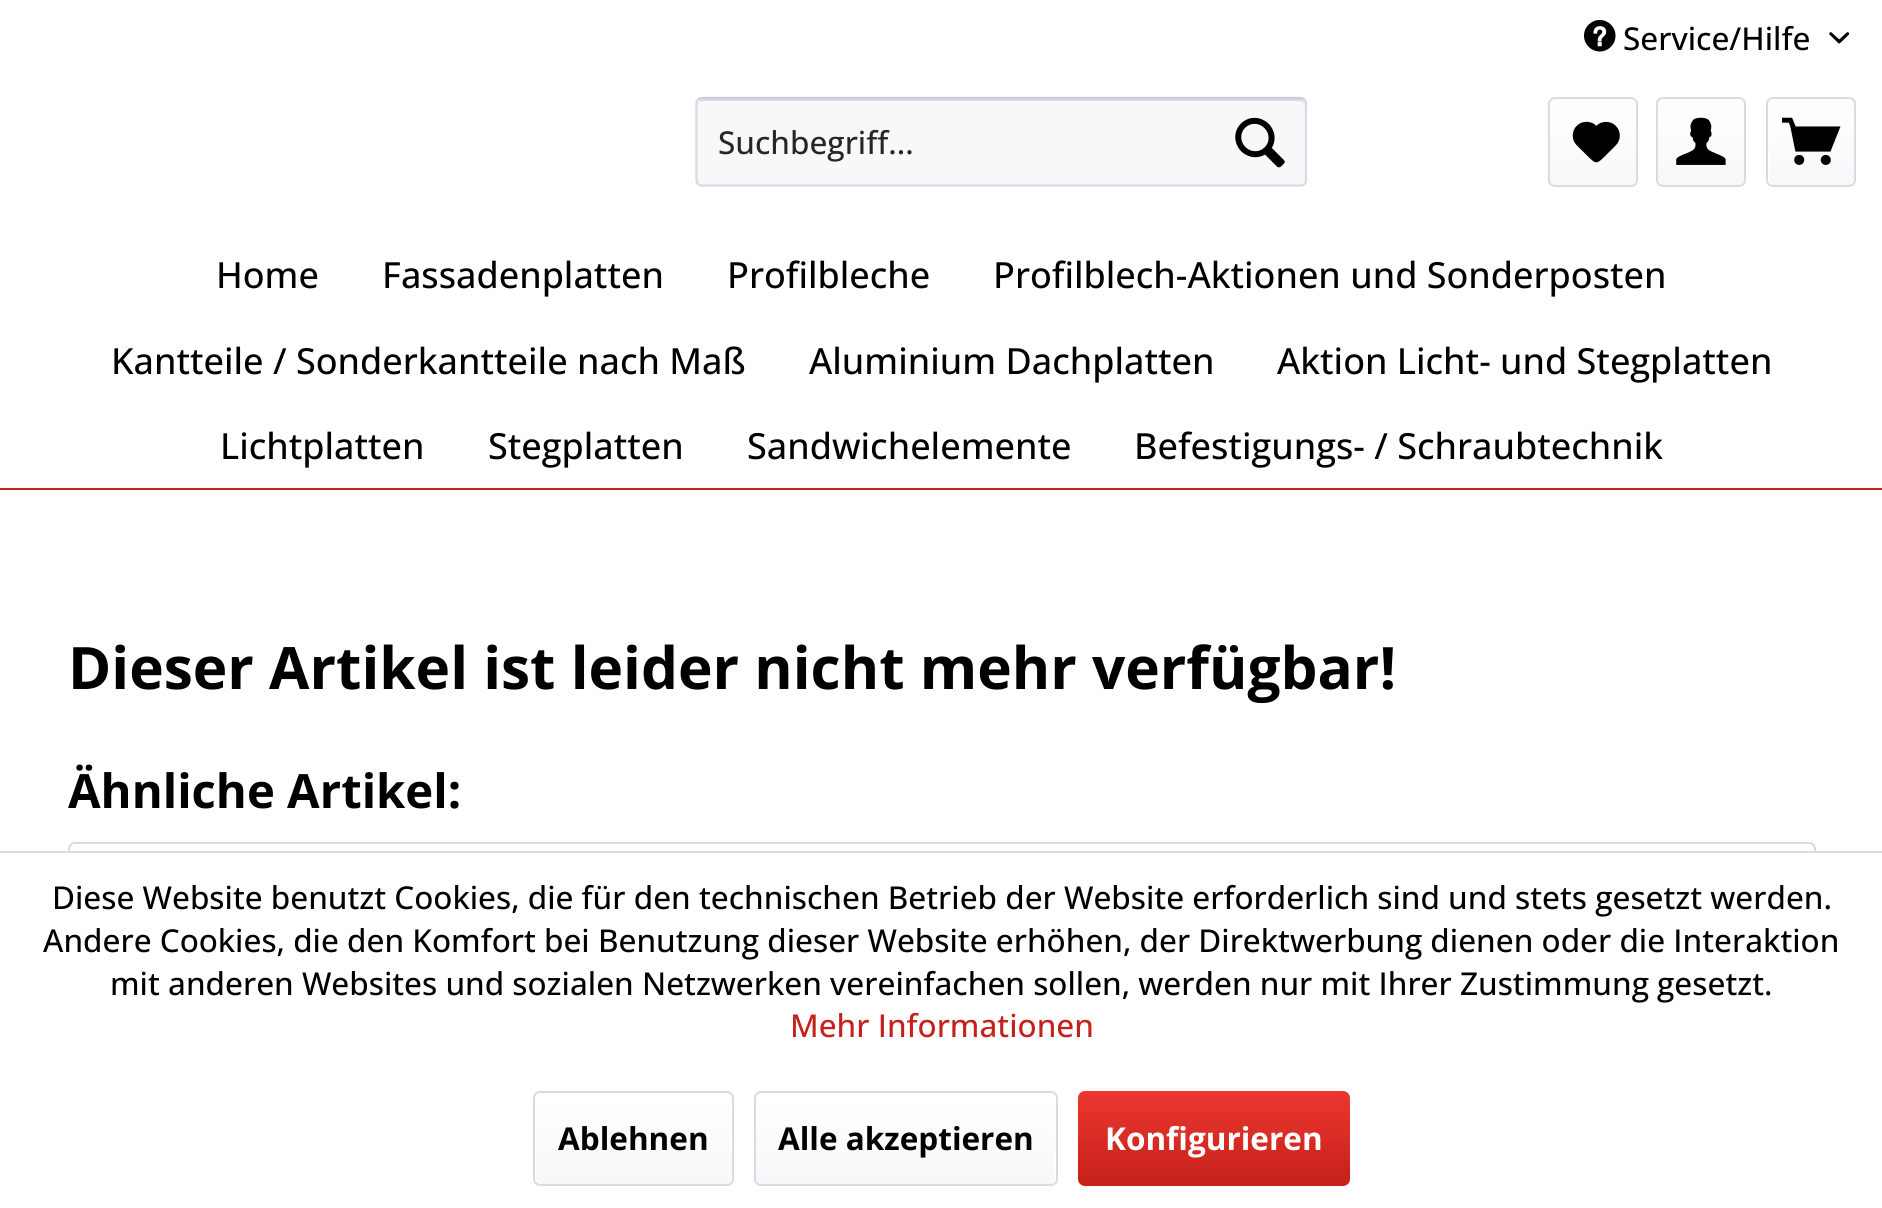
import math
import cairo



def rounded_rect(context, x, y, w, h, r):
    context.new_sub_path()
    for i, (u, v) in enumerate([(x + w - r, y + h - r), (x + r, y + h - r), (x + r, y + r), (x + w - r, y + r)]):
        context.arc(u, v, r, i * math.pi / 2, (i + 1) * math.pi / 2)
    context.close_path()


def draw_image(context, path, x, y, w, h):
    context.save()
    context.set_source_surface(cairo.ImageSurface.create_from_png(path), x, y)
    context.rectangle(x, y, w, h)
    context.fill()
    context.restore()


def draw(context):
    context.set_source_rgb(1, 1, 1)
    context.paint()
    draw_image(context, "images/1.png", 1584, 20, 32, 32)
    draw_image(context, "images/2.png", 1829, 32, 21, 12)
    context.set_source_rgb(248 / 255, 248 / 255, 250 / 255)
    rounded_rect(context, 695, 97, 612, 90, 7)
    context.fill()
    context.set_source_rgb(218 / 255, 218 / 255, 229 / 255)
    context.new_path()
    context.move_to(702, 101)
    context.line_to(1300, 101)
    context.curve_to(1303, 101, 1305, 103, 1305, 106)
    context.curve_to(1305, 103, 1304, 99, 1300, 99)
    context.line_to(703, 99)
    context.curve_to(699, 99, 698, 103, 698, 106)
    context.curve_to(698, 103, 700, 101, 702, 101)
    context.close_path()
    context.fill()
    context.new_path()
    context.move_to(698, 99.5)
    context.curve_to(699, 98.5, 700.5, 98, 702, 98)
    context.line_to(1300.5, 98)
    context.curve_to(1302, 98, 1303.5, 98.5, 1304.5, 99.5)
    context.set_source_rgb(203 / 255, 203 / 255, 219 / 255)
    context.set_line_width(2.2)
    context.stroke()
    context.new_path()
    context.move_to(1304.5, 99.5)
    context.curve_to(1305.5, 100.5, 1306, 102, 1306, 103.5)
    context.line_to(1306, 180)
    context.curve_to(1306, 181.5, 1305.5, 183, 1304.5, 184)
    context.curve_to(1303.5, 185, 1302, 185.5, 1300.5, 185.5)
    context.line_to(702, 185.5)
    context.curve_to(700.5, 185.5, 699, 185, 698, 184)
    context.curve_to(697, 183, 696.5, 181.5, 696.5, 180)
    context.line_to(696.5, 103.5)
    context.curve_to(696.5, 102, 697, 100.5, 698, 99.5)
    context.set_source_rgb(218 / 255, 218 / 255, 229 / 255)
    context.stroke()
    draw_image(context, "images/3.png", 1235, 117, 50, 51)
    gradient = cairo.LinearGradient(1593, 99, 1593, 185)
    gradient.add_color_stop_rgba(0, 1, 1, 1, 1)
    gradient.add_color_stop_rgba(1, 248 / 255, 248 / 255, 250 / 255, 1)
    context.set_source(gradient)
    rounded_rect(context, 1550, 99, 86, 86, 5)
    context.fill()
    rounded_rect(context, 1549, 98, 88, 88, 6)
    context.set_source_rgb(218 / 255, 218 / 255, 229 / 255)
    context.set_line_width(2)
    context.stroke()
    draw_image(context, "images/4.png", 1572, 121, 48, 42)
    gradient = cairo.LinearGradient(1701, 99, 1701, 185)
    gradient.add_color_stop_rgba(0, 1, 1, 1, 1)
    gradient.add_color_stop_rgba(1, 248 / 255, 248 / 255, 250 / 255, 1)
    context.set_source(gradient)
    rounded_rect(context, 1658, 99, 86, 86, 5)
    context.fill()
    rounded_rect(context, 1657, 98, 88, 88, 6)
    context.set_source_rgb(218 / 255, 218 / 255, 229 / 255)
    context.stroke()
    draw_image(context, "images/5.png", 1676, 117, 50, 48)
    gradient = cairo.LinearGradient(1811, 99, 1811, 185)
    gradient.add_color_stop_rgba(0, 1, 1, 1, 1)
    gradient.add_color_stop_rgba(1, 248 / 255, 248 / 255, 250 / 255, 1)
    context.set_source(gradient)
    rounded_rect(context, 1769, 99, 85, 86, 5)
    context.fill()
    rounded_rect(context, 1767, 98, 88, 88, 6)
    context.set_source_rgb(218 / 255, 218 / 255, 229 / 255)
    context.stroke()
    draw_image(context, "images/6.png", 1782, 117, 59, 48)
    context.set_source_rgb(197 / 255, 32 / 255, 25 / 255)
    context.rectangle(0, 488, 1882, 2)
    context.fill()
    rounded_rect(context, 69, 843, 1746, 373, 6)
    context.set_source_rgb(218 / 255, 218 / 255, 229 / 255)
    context.stroke()
    context.set_source_rgb(1, 1, 1)
    context.rectangle(68, 853, 1748, 355)
    context.fill()
    context.set_source_rgb(218 / 255, 218 / 255, 229 / 255)
    context.rectangle(0, 851, 1882, 2)
    context.fill()
    gradient = cairo.LinearGradient(633, 1094, 633, 1184)
    gradient.add_color_stop_rgba(0, 1, 1, 1, 1)
    gradient.add_color_stop_rgba(1, 248 / 255, 248 / 255, 250 / 255, 1)
    context.set_source(gradient)
    rounded_rect(context, 536, 1094, 195, 90, 5)
    context.fill()
    rounded_rect(context, 534, 1092, 199, 93, 6)
    context.set_source_rgb(218 / 255, 218 / 255, 229 / 255)
    context.stroke()
    gradient = cairo.LinearGradient(906, 1094, 906, 1184)
    gradient.add_color_stop_rgba(0, 1, 1, 1, 1)
    gradient.add_color_stop_rgba(1, 248 / 255, 248 / 255, 250 / 255, 1)
    context.set_source(gradient)
    rounded_rect(context, 756, 1094, 299, 90, 5)
    context.fill()
    rounded_rect(context, 755, 1092, 302, 93, 6)
    context.set_source_rgb(218 / 255, 218 / 255, 229 / 255)
    context.stroke()
    gradient = cairo.LinearGradient(1214, 1091, 1214, 1186)
    gradient.add_color_stop_rgba(0, 235 / 255, 56 / 255, 48 / 255, 1)
    gradient.add_color_stop_rgba(1, 197 / 255, 32 / 255, 25 / 255, 1)
    context.set_source(gradient)
    rounded_rect(context, 1078, 1091, 272, 95, 7)
    context.fill()
    context.select_font_face("Open Sans Medium")
    context.set_font_size(31.5)
    context.set_source_rgb(0, 0, 0)
    context.move_to(1623, 50)
    context.show_text("Service/Hilfe")
    context.set_source_rgb(38 / 255, 38 / 255, 38 / 255)
    context.move_to(718, 154)
    context.show_text("Suchbegriff...")
    context.set_font_size(36)
    context.set_source_rgb(0, 0, 0)
    context.move_to(216, 288)
    context.show_text("Home")
    context.move_to(382, 288)
    context.show_text("Fassadenplatten")
    context.move_to(727, 288)
    context.show_text("Profilbleche")
    context.move_to(993, 288)
    context.show_text("Profilblech-Aktionen und Sonderposten")
    context.move_to(111, 374)
    context.show_text("Kantteile / Sonderkantteile nach Maß")
    context.move_to(809, 374)
    context.show_text("Aluminium Dachplatten")
    context.move_to(1277, 374)
    context.show_text("Aktion Licht- und Stegplatten")
    context.move_to(220, 459)
    context.show_text("Lichtplatten")
    context.move_to(488, 459)
    context.show_text("Stegplatten")
    context.move_to(747, 459)
    context.show_text("Sandwichelemente")
    context.move_to(1134, 459)
    context.show_text("Befestigungs- / Schraubtechnik")
    context.select_font_face("Open Sans", cairo.FontSlant.NORMAL, cairo.FontWeight.BOLD)
    context.set_font_size(58.5)
    context.move_to(68, 689)
    context.show_text("Dieser Artikel ist leider nicht mehr verfügbar!")
    context.set_font_size(47.25)
    context.move_to(68, 808)
    context.show_text("Ähnliche Artikel:")
    context.select_font_face("Open Sans Medium")
    context.set_font_size(31.5)
    context.move_to(52, 909)
    context.show_text("Diese Website benutzt Cookies, die für den technischen Betrieb der Website erforderlich sind und stets gesetzt werden.")
    context.move_to(43, 952)
    context.show_text("Andere Cookies, die den Komfort bei Benutzung dieser Website erhöhen, der Direktwerbung dienen oder die Interaktion")
    context.move_to(110, 995)
    context.show_text("mit anderen Websites und sozialen Netzwerken vereinfachen sollen, werden nur mit Ihrer Zustimmung gesetzt.")
    context.set_source_rgb(197 / 255, 32 / 255, 25 / 255)
    context.move_to(790, 1037)
    context.show_text("Mehr Informationen")
    context.select_font_face("Open Sans", cairo.FontSlant.NORMAL, cairo.FontWeight.BOLD)
    context.set_source_rgb(0, 0, 0)
    context.move_to(558, 1150)
    context.show_text("Ablehnen")
    context.move_to(778, 1150)
    context.show_text("Alle akzeptieren")
    context.set_source_rgb(1, 1, 1)
    context.move_to(1105, 1150)
    context.show_text("Konfigurieren")


surface = cairo.ImageSurface(cairo.Format.RGB24, 1882, 1208)
context = cairo.Context(surface)
options = cairo.FontOptions()
options.set_hint_metrics(cairo.HintMetrics.OFF)
options.set_hint_style(cairo.HintStyle.NONE)
context.set_font_options(options)
context.set_miter_limit(4)
draw(context)
surface.write_to_png("out.png")
